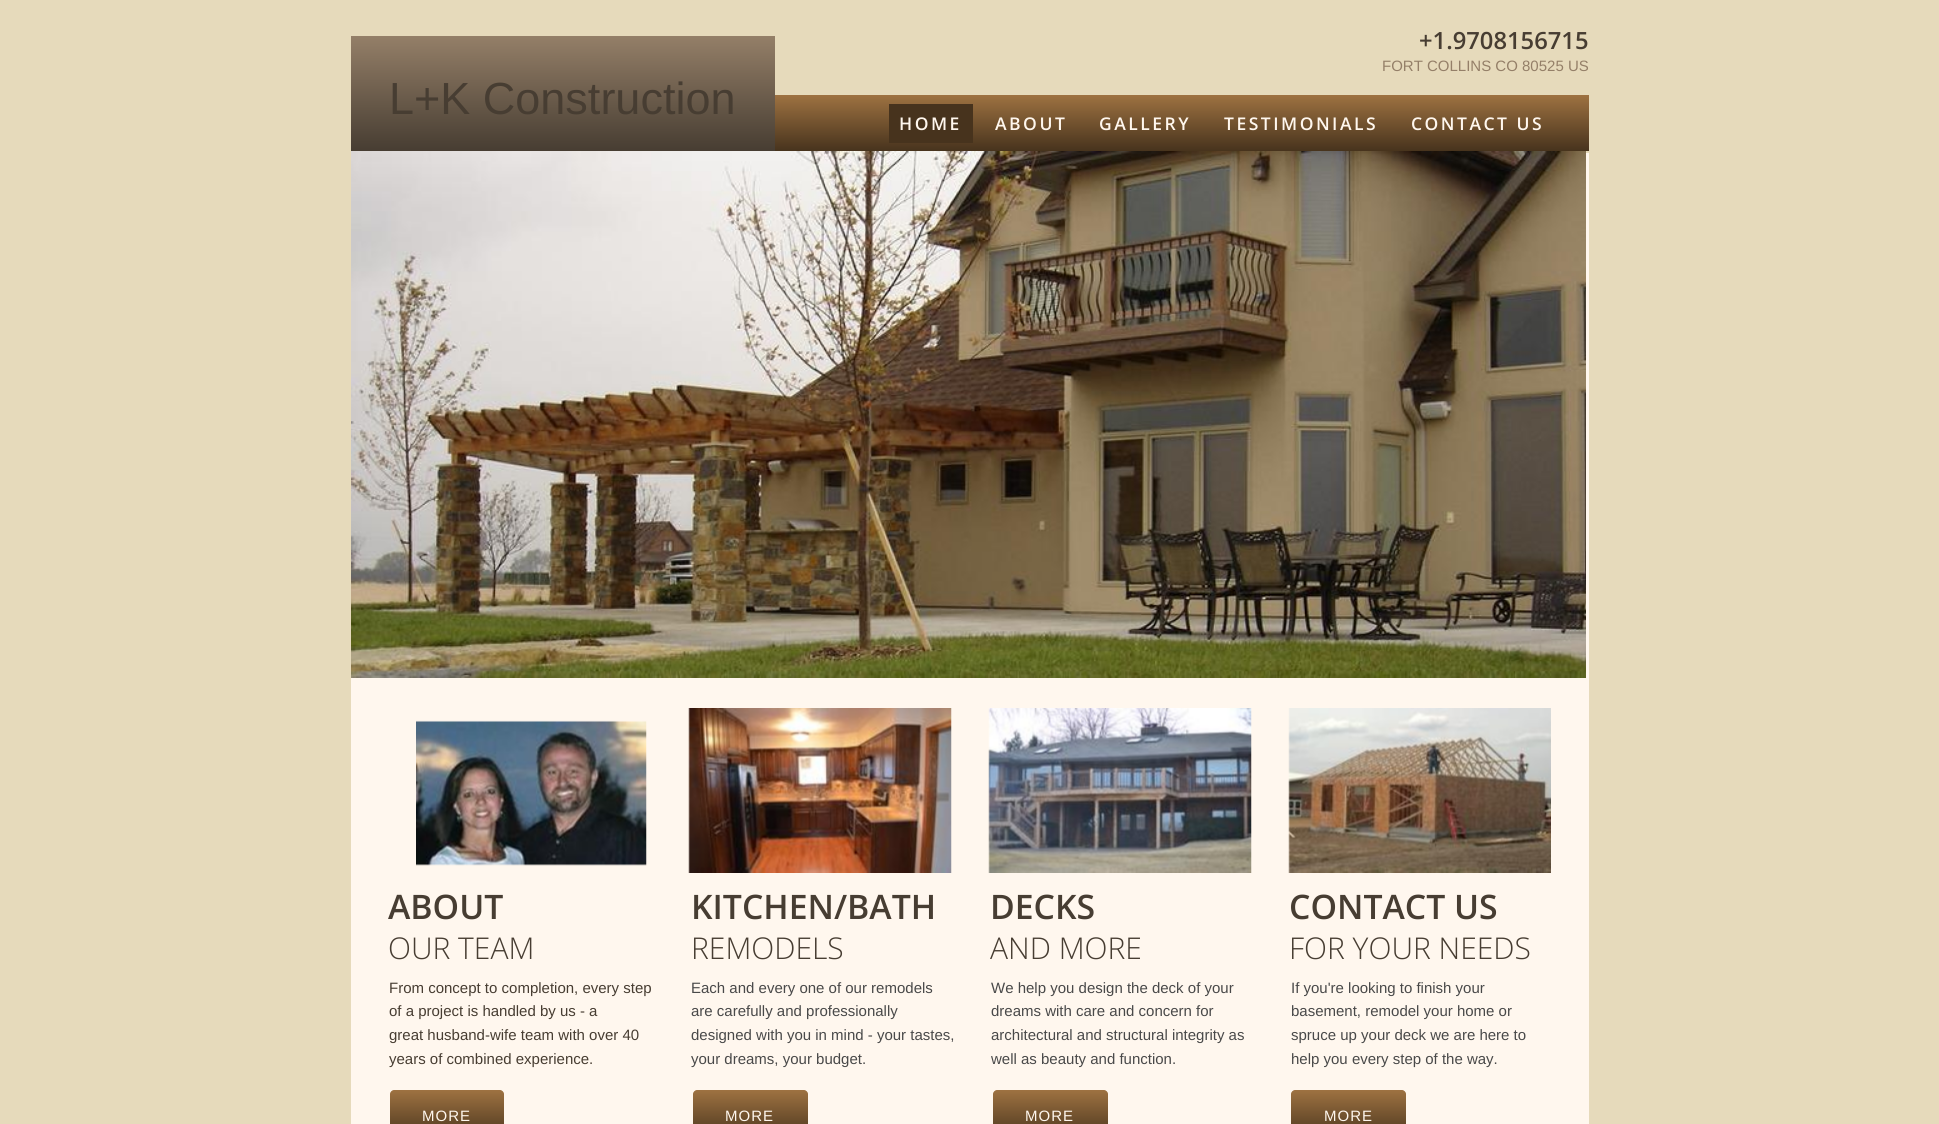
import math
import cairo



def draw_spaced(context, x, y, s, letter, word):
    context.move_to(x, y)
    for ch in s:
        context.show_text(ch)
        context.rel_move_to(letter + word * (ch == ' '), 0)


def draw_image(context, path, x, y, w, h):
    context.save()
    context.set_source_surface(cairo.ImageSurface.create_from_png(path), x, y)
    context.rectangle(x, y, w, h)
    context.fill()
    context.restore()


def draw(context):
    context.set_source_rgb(230 / 255, 218 / 255, 187 / 255)
    context.paint()
    context.set_source_rgb(1, 247 / 255, 238 / 255)
    context.rectangle(351, 153, 1238, 971)
    context.fill()
    gradient = cairo.LinearGradient(563, 36, 563, 151)
    gradient.add_color_stop_rgba(0, 148 / 255, 127 / 255, 104 / 255, 1)
    gradient.add_color_stop_rgba(1, 71 / 255, 61 / 255, 50 / 255, 1)
    context.set_source(gradient)
    context.rectangle(351, 36, 424, 115)
    context.fill()
    gradient = cairo.LinearGradient(1181, 95, 1181, 151)
    gradient.add_color_stop_rgba(0, 158 / 255, 114 / 255, 65 / 255, 1)
    gradient.add_color_stop_rgba(1, 71 / 255, 51 / 255, 29 / 255, 1)
    context.set_source(gradient)
    context.rectangle(775, 95, 814, 56)
    context.fill()
    context.set_source_rgb(71 / 255, 51 / 255, 29 / 255)
    context.rectangle(889, 104, 84, 39)
    context.fill()
    draw_image(context, "images/1.png", 351, 151, 1235, 527)
    draw_image(context, "images/2.png", 416, 720, 231, 146)
    draw_image(context, "images/3.png", 688, 708, 264, 165)
    draw_image(context, "images/4.png", 988, 708, 264, 165)
    draw_image(context, "images/5.png", 1288, 708, 263, 165)
    gradient = cairo.LinearGradient(447, 1090, 447, 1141)
    gradient.add_color_stop_rgba(0, 158 / 255, 114 / 255, 65 / 255, 1)
    gradient.add_color_stop_rgba(1, 71 / 255, 51 / 255, 29 / 255, 1)
    context.set_source(gradient)
    context.new_path()
    context.move_to(394, 1090)
    context.line_to(500, 1090)
    context.curve_to(502, 1090, 504, 1092, 504, 1094)
    context.line_to(504, 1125)
    context.line_to(390, 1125)
    context.line_to(390, 1094)
    context.curve_to(390, 1092, 392, 1090, 394, 1090)
    context.close_path()
    context.fill()
    gradient = cairo.LinearGradient(750, 1090, 750, 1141)
    gradient.add_color_stop_rgba(0, 158 / 255, 114 / 255, 65 / 255, 1)
    gradient.add_color_stop_rgba(1, 71 / 255, 51 / 255, 29 / 255, 1)
    context.set_source(gradient)
    context.new_path()
    context.move_to(697, 1090)
    context.line_to(804, 1090)
    context.curve_to(806, 1090, 808, 1092, 808, 1094)
    context.line_to(808, 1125)
    context.line_to(693, 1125)
    context.line_to(693, 1094)
    context.curve_to(693, 1092, 695, 1090, 697, 1090)
    context.close_path()
    context.fill()
    gradient = cairo.LinearGradient(1050, 1090, 1050, 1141)
    gradient.add_color_stop_rgba(0, 158 / 255, 114 / 255, 65 / 255, 1)
    gradient.add_color_stop_rgba(1, 71 / 255, 51 / 255, 29 / 255, 1)
    context.set_source(gradient)
    context.new_path()
    context.move_to(997, 1090)
    context.line_to(1104, 1090)
    context.curve_to(1106, 1090, 1108, 1092, 1108, 1094)
    context.line_to(1108, 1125)
    context.line_to(993, 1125)
    context.line_to(993, 1094)
    context.curve_to(993, 1092, 995, 1090, 997, 1090)
    context.close_path()
    context.fill()
    gradient = cairo.LinearGradient(1349, 1090, 1349, 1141)
    gradient.add_color_stop_rgba(0, 158 / 255, 114 / 255, 65 / 255, 1)
    gradient.add_color_stop_rgba(1, 71 / 255, 51 / 255, 29 / 255, 1)
    context.set_source(gradient)
    context.new_path()
    context.move_to(1295, 1090)
    context.line_to(1402, 1090)
    context.curve_to(1404, 1090, 1406, 1092, 1406, 1094)
    context.line_to(1406, 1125)
    context.line_to(1291, 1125)
    context.line_to(1291, 1094)
    context.curve_to(1291, 1092, 1293, 1090, 1295, 1090)
    context.close_path()
    context.fill()
    context.select_font_face("Open Sans SemiBold")
    context.set_font_size(23.75)
    context.set_source_rgb(71 / 255, 61 / 255, 50 / 255)
    context.move_to(1419, 49)
    context.show_text("+1.9708156715")
    context.select_font_face("Liberation Sans")
    context.set_font_size(15)
    context.set_source_rgb(148 / 255, 127 / 255, 104 / 255)
    context.move_to(1382, 71)
    context.show_text("FORT COLLINS CO 80525 US")
    context.set_font_size(45)
    context.set_source_rgb(71 / 255, 61 / 255, 50 / 255)
    context.move_to(389, 114)
    context.show_text("L+K Construction")
    context.select_font_face("Open Sans SemiBold")
    context.set_font_size(17.5)
    context.set_source_rgb(1, 247 / 255, 238 / 255)
    draw_spaced(context, 899, 130, "HOME", 2.5, 0)
    draw_spaced(context, 995, 130, "ABOUT", 2.5, 0)
    draw_spaced(context, 1099, 130, "GALLERY", 2.5, 0)
    draw_spaced(context, 1224, 130, "TESTIMONIALS", 2.5, 0)
    draw_spaced(context, 1411, 130, "CONTACT US", 2.5, 0)
    context.set_font_size(33.75)
    context.set_source_rgb(71 / 255, 61 / 255, 50 / 255)
    context.move_to(388, 919)
    context.show_text("ABOUT")
    context.select_font_face("Open Sans Light")
    context.set_font_size(30)
    context.move_to(388, 959)
    context.show_text("OUR TEAM")
    context.select_font_face("Open Sans SemiBold")
    context.set_font_size(33.75)
    context.move_to(691, 919)
    context.show_text("KITCHEN/BATH")
    context.select_font_face("Open Sans Light")
    context.set_font_size(30)
    context.move_to(691, 959)
    context.show_text("REMODELS")
    context.select_font_face("Open Sans SemiBold")
    context.set_font_size(33.75)
    context.move_to(990, 919)
    context.show_text("DECKS")
    context.select_font_face("Open Sans Light")
    context.set_font_size(30)
    context.move_to(990, 959)
    context.show_text("AND MORE")
    context.select_font_face("Open Sans SemiBold")
    context.set_font_size(33.75)
    context.move_to(1289, 919)
    context.show_text("CONTACT US")
    context.select_font_face("Open Sans Light")
    context.set_font_size(30)
    context.move_to(1289, 959)
    context.show_text("FOR YOUR NEEDS")
    context.select_font_face("Liberation Sans")
    context.set_font_size(15)
    context.move_to(389, 993)
    context.show_text("From concept to completion, every step")
    context.move_to(389, 1016)
    context.show_text("of a project is handled by us - a")
    context.move_to(389, 1040)
    context.show_text("great husband-wife team with over 40")
    context.move_to(389, 1064)
    context.show_text("years of combined experience.")
    context.set_source_rgb(73 / 255, 73 / 255, 73 / 255)
    context.move_to(691, 993)
    context.show_text("Each and every one of our remodels")
    context.move_to(691, 1016)
    context.show_text("are carefully and professionally")
    context.move_to(691, 1040)
    context.show_text("designed with you in mind - your tastes,")
    context.move_to(691, 1064)
    context.show_text("your dreams, your budget.")
    context.move_to(991, 993)
    context.show_text("We help you design the deck of your")
    context.move_to(991, 1016)
    context.show_text("dreams with care and concern for")
    context.move_to(991, 1040)
    context.show_text("architectural and structural integrity as")
    context.move_to(991, 1064)
    context.show_text("well as beauty and function.")
    context.move_to(1291, 993)
    context.show_text("If you're looking to finish your")
    context.move_to(1291, 1016)
    context.show_text("basement, remodel your home or")
    context.move_to(1291, 1040)
    context.show_text("spruce up your deck we are here to")
    context.move_to(1291, 1064)
    context.show_text("help you every step of the way.")
    context.set_source_rgb(1, 247 / 255, 238 / 255)
    draw_spaced(context, 422, 1121, "MORE", 1, 0)
    draw_spaced(context, 725, 1121, "MORE", 1, 0)
    draw_spaced(context, 1025, 1121, "MORE", 1, 0)
    draw_spaced(context, 1324, 1121, "MORE", 1, 0)


surface = cairo.ImageSurface(cairo.Format.RGB24, 1939, 1124)
context = cairo.Context(surface)
options = cairo.FontOptions()
options.set_hint_metrics(cairo.HintMetrics.OFF)
options.set_hint_style(cairo.HintStyle.NONE)
context.set_font_options(options)
context.set_miter_limit(4)
draw(context)
surface.write_to_png("out.png")
